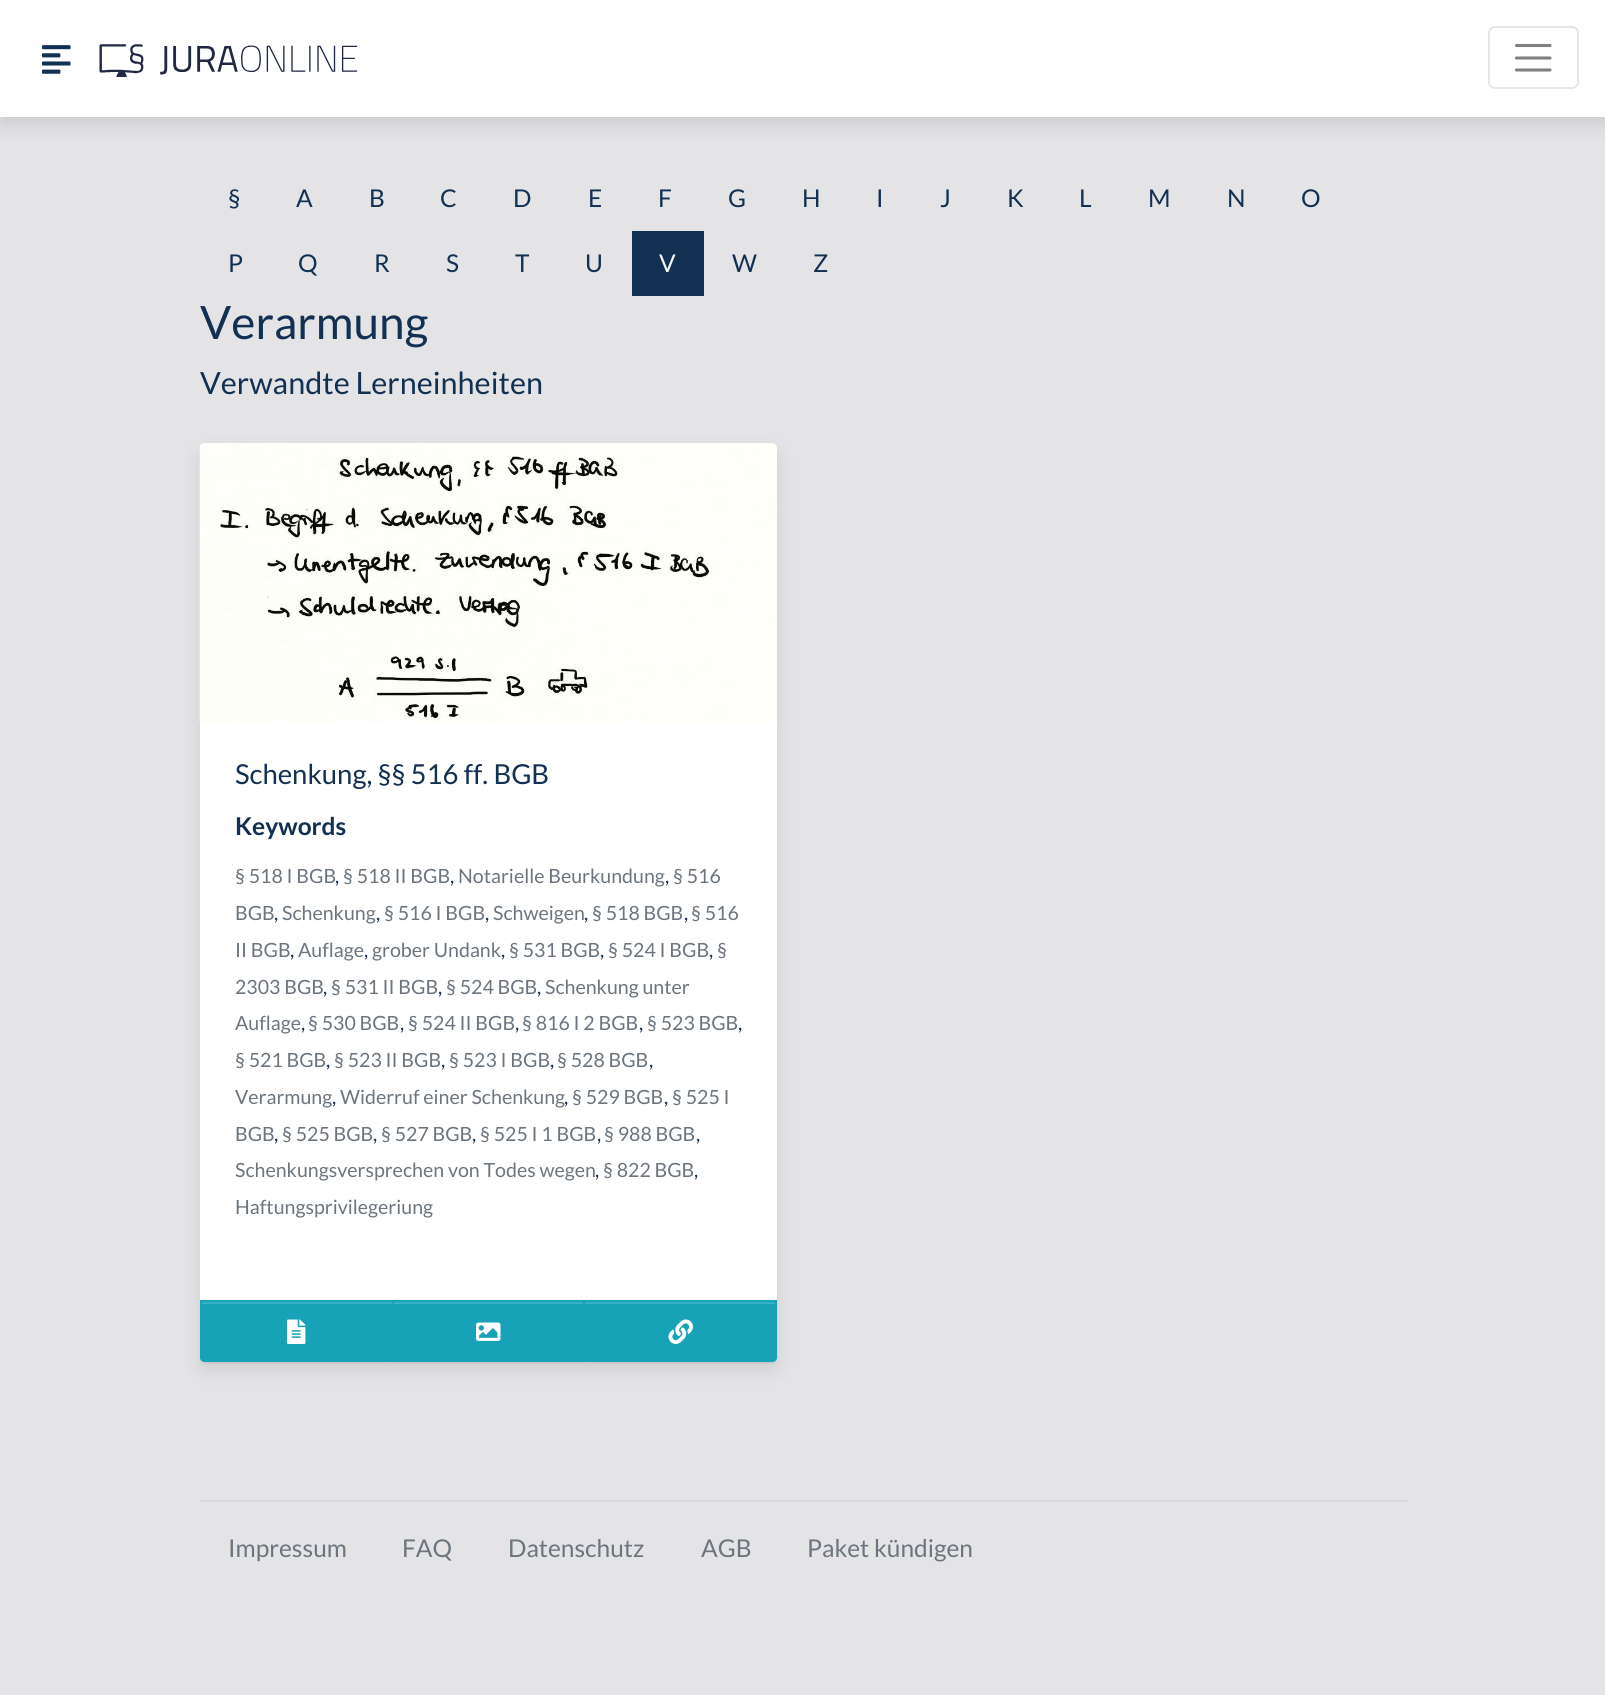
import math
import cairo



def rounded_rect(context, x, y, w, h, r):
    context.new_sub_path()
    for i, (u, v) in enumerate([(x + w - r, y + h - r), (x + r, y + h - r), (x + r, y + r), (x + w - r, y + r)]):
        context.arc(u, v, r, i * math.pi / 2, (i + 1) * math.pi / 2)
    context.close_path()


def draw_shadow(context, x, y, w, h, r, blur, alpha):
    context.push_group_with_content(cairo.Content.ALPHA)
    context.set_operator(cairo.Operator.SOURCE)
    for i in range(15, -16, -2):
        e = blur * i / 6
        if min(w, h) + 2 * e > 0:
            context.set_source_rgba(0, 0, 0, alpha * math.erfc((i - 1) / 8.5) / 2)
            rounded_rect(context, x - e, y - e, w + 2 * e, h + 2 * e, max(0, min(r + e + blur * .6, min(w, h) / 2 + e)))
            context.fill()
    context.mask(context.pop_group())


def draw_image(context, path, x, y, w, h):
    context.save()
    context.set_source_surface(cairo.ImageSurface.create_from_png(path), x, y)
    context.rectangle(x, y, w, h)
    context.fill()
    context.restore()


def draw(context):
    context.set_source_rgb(228 / 255, 228 / 255, 231 / 255)
    context.paint()
    context.set_source_rgb(0, 0, 0)
    draw_shadow(context, 0, 9, 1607, 117, 0, 9, 0.1)
    context.set_source_rgb(1, 1, 1)
    context.rectangle(0, 0, 1605, 117)
    context.fill()
    draw_image(context, "images/1.png", 42, 45, 29, 29)
    draw_image(context, "images/2.png", 99, 44, 259, 33)
    rounded_rect(context, 1489, 27, 89, 61, 6)
    context.set_source_rgb(230 / 255, 230 / 255, 230 / 255)
    context.stroke()
    context.new_path()
    context.move_to(1516.5, 45.5)
    context.line_to(1550, 45.5)
    context.move_to(1516.5, 58)
    context.line_to(1550, 58)
    context.move_to(1516.5, 70)
    context.line_to(1550, 70)
    context.set_source_rgb(128 / 255, 128 / 255, 128 / 255)
    context.set_line_width(3.1)
    context.set_line_cap(cairo.LineCap.ROUND)
    context.stroke()
    context.set_source_rgb(18 / 255, 48 / 255, 82 / 255)
    context.rectangle(632, 231, 72, 65)
    context.fill()
    context.set_source_rgb(0, 0, 0)
    draw_shadow(context, 200, 452, 577, 918, 7, 9, 0.1)
    context.set_source_rgb(1, 1, 1)
    rounded_rect(context, 200, 443, 577, 919, 7)
    context.fill()
    draw_image(context, "images/3.png", 199, 443, 578, 280)
    context.set_source_rgb(0, 0, 0)
    draw_shadow(context, 200, 1302, 194, 61, 5, 1, 0.07)
    context.set_source_rgb(23 / 255, 162 / 255, 184 / 255)
    context.new_path()
    context.move_to(200, 1300)
    context.line_to(394, 1300)
    context.line_to(394, 1362)
    context.line_to(205, 1362)
    context.curve_to(202, 1362, 200, 1360, 200, 1357)
    context.close_path()
    context.fill()
    context.set_source_rgb(58 / 255, 176 / 255, 195 / 255)
    context.rectangle(201, 1302, 191, 2)
    context.fill()
    context.new_path()
    context.move_to(201, 1301)
    context.line_to(393, 1301)
    context.line_to(393, 1361)
    context.line_to(205, 1361)
    context.curve_to(203, 1361, 201, 1359, 201, 1357)
    context.close_path()
    context.set_source_rgb(23 / 255, 162 / 255, 184 / 255)
    context.set_line_width(2)
    context.set_line_cap(cairo.LineCap.BUTT)
    context.stroke()
    draw_image(context, "images/4.png", 287, 1319, 19, 25)
    context.set_source_rgb(0, 0, 0)
    draw_shadow(context, 392, 1302, 193, 61, 0, 1, 0.07)
    context.set_source_rgb(23 / 255, 162 / 255, 184 / 255)
    context.rectangle(392, 1300, 191, 62)
    context.fill()
    context.set_source_rgb(58 / 255, 176 / 255, 195 / 255)
    context.rectangle(394, 1302, 189, 2)
    context.fill()
    draw_image(context, "images/5.png", 476, 1322, 25, 19)
    context.set_source_rgb(0, 0, 0)
    draw_shadow(context, 583, 1302, 194, 61, 5, 1, 0.07)
    context.set_source_rgb(23 / 255, 162 / 255, 184 / 255)
    context.new_path()
    context.move_to(583, 1300)
    context.line_to(777, 1300)
    context.line_to(777, 1357)
    context.curve_to(777, 1360, 775, 1362, 772, 1362)
    context.line_to(583, 1362)
    context.close_path()
    context.fill()
    context.set_source_rgb(58 / 255, 176 / 255, 195 / 255)
    context.rectangle(585, 1302, 190, 2)
    context.fill()
    context.new_path()
    context.move_to(584, 1301)
    context.line_to(776, 1301)
    context.line_to(776, 1357)
    context.curve_to(776, 1359, 774, 1361, 772, 1361)
    context.line_to(584, 1361)
    context.close_path()
    context.set_source_rgb(23 / 255, 162 / 255, 184 / 255)
    context.stroke()
    draw_image(context, "images/6.png", 668, 1319, 25, 25)
    context.set_source_rgb(217 / 255, 217 / 255, 219 / 255)
    context.rectangle(200, 1500, 1207, 2)
    context.fill()
    context.select_font_face("Lato")
    context.set_font_size(24.5)
    context.set_source_rgb(18 / 255, 48 / 255, 82 / 255)
    context.move_to(228, 207)
    context.show_text("§")
    context.move_to(296, 207)
    context.show_text("A")
    context.move_to(369, 207)
    context.show_text("B")
    context.move_to(440, 207)
    context.show_text("C")
    context.move_to(513, 207)
    context.show_text("D")
    context.move_to(588, 207)
    context.show_text("E")
    context.move_to(658, 207)
    context.show_text("F")
    context.move_to(728, 207)
    context.show_text("G")
    context.move_to(802, 207)
    context.show_text("H")
    context.move_to(876, 207)
    context.show_text("I")
    context.move_to(940, 207)
    context.show_text("J")
    context.move_to(1007, 207)
    context.show_text("K")
    context.move_to(1079, 207)
    context.show_text("L")
    context.move_to(1148, 207)
    context.show_text("M")
    context.move_to(1227, 207)
    context.show_text("N")
    context.move_to(1301, 207)
    context.show_text("O")
    context.move_to(228, 272)
    context.show_text("P")
    context.move_to(298, 272)
    context.show_text("Q")
    context.move_to(374, 272)
    context.show_text("R")
    context.move_to(446, 272)
    context.show_text("S")
    context.move_to(515, 272)
    context.show_text("T")
    context.move_to(585, 272)
    context.show_text("U")
    context.set_source_rgb(242 / 255, 244 / 255, 246 / 255)
    context.move_to(659, 272)
    context.show_text("V")
    context.set_source_rgb(18 / 255, 48 / 255, 82 / 255)
    context.move_to(732, 272)
    context.show_text("W")
    context.move_to(813, 272)
    context.show_text("Z")
    context.set_font_size(46)
    context.move_to(200, 339)
    context.show_text("Verarmung")
    context.set_font_size(30.6)
    context.move_to(200, 394)
    context.show_text("Verwandte Lerneinheiten")
    context.set_font_size(27.5)
    context.move_to(235, 784)
    context.show_text("Schenkung, §§ 516 ff. BGB")
    context.select_font_face("Lato", cairo.FontSlant.NORMAL, cairo.FontWeight.BOLD)
    context.set_font_size(24.5)
    context.move_to(235, 835)
    context.show_text("Keywords")
    context.select_font_face("Lato")
    context.set_font_size(19.6)
    context.set_source_rgb(108 / 255, 117 / 255, 125 / 255)
    context.move_to(235, 883)
    context.show_text("§ 518 I BGB")
    context.set_source_rgb(18 / 255, 48 / 255, 82 / 255)
    context.move_to(335, 883)
    context.show_text(",")
    context.set_source_rgb(108 / 255, 117 / 255, 125 / 255)
    context.move_to(343, 883)
    context.show_text("§ 518 II BGB")
    context.set_source_rgb(18 / 255, 48 / 255, 82 / 255)
    context.move_to(450, 883)
    context.show_text(",")
    context.set_source_rgb(108 / 255, 117 / 255, 125 / 255)
    context.move_to(458, 883)
    context.show_text("Notarielle Beurkundung")
    context.set_source_rgb(18 / 255, 48 / 255, 82 / 255)
    context.move_to(665, 883)
    context.show_text(",")
    context.set_source_rgb(108 / 255, 117 / 255, 125 / 255)
    context.move_to(673, 883)
    context.show_text("§ 516")
    context.move_to(235, 920)
    context.show_text("BGB")
    context.set_source_rgb(18 / 255, 48 / 255, 82 / 255)
    context.move_to(274, 920)
    context.show_text(",")
    context.set_source_rgb(108 / 255, 117 / 255, 125 / 255)
    context.move_to(282, 920)
    context.show_text("Schenkung")
    context.set_source_rgb(18 / 255, 48 / 255, 82 / 255)
    context.move_to(376, 920)
    context.show_text(",")
    context.set_source_rgb(108 / 255, 117 / 255, 125 / 255)
    context.move_to(384, 920)
    context.show_text("§ 516 I BGB")
    context.set_source_rgb(18 / 255, 48 / 255, 82 / 255)
    context.move_to(485, 920)
    context.show_text(",")
    context.set_source_rgb(108 / 255, 117 / 255, 125 / 255)
    context.move_to(493, 920)
    context.show_text("Schweigen")
    context.set_source_rgb(18 / 255, 48 / 255, 82 / 255)
    context.move_to(584, 920)
    context.show_text(",")
    context.set_source_rgb(108 / 255, 117 / 255, 125 / 255)
    context.move_to(592, 920)
    context.show_text("§ 518 BGB")
    context.set_source_rgb(18 / 255, 48 / 255, 82 / 255)
    context.move_to(684, 920)
    context.show_text(",")
    context.set_source_rgb(108 / 255, 117 / 255, 125 / 255)
    context.move_to(691, 920)
    context.show_text("§ 516")
    context.move_to(235, 957)
    context.show_text("II BGB")
    context.set_source_rgb(18 / 255, 48 / 255, 82 / 255)
    context.move_to(290, 957)
    context.show_text(",")
    context.set_source_rgb(108 / 255, 117 / 255, 125 / 255)
    context.move_to(298, 957)
    context.show_text("Auflage")
    context.set_source_rgb(18 / 255, 48 / 255, 82 / 255)
    context.move_to(364, 957)
    context.show_text(",")
    context.set_source_rgb(108 / 255, 117 / 255, 125 / 255)
    context.move_to(372, 957)
    context.show_text("grober Undank")
    context.set_source_rgb(18 / 255, 48 / 255, 82 / 255)
    context.move_to(501, 957)
    context.show_text(",")
    context.set_source_rgb(108 / 255, 117 / 255, 125 / 255)
    context.move_to(509, 957)
    context.show_text("§ 531 BGB")
    context.set_source_rgb(18 / 255, 48 / 255, 82 / 255)
    context.move_to(600, 957)
    context.show_text(",")
    context.set_source_rgb(108 / 255, 117 / 255, 125 / 255)
    context.move_to(608, 957)
    context.show_text("§ 524 I BGB")
    context.set_source_rgb(18 / 255, 48 / 255, 82 / 255)
    context.move_to(709, 957)
    context.show_text(",")
    context.set_source_rgb(108 / 255, 117 / 255, 125 / 255)
    context.move_to(717, 957)
    context.show_text("§")
    context.move_to(235, 994)
    context.show_text("2303 BGB")
    context.set_source_rgb(18 / 255, 48 / 255, 82 / 255)
    context.move_to(323, 994)
    context.show_text(",")
    context.set_source_rgb(108 / 255, 117 / 255, 125 / 255)
    context.move_to(331, 994)
    context.show_text("§ 531 II BGB")
    context.set_source_rgb(18 / 255, 48 / 255, 82 / 255)
    context.move_to(438, 994)
    context.show_text(",")
    context.set_source_rgb(108 / 255, 117 / 255, 125 / 255)
    context.move_to(446, 994)
    context.show_text("§ 524 BGB")
    context.set_source_rgb(18 / 255, 48 / 255, 82 / 255)
    context.move_to(537, 994)
    context.show_text(",")
    context.set_source_rgb(108 / 255, 117 / 255, 125 / 255)
    context.move_to(545, 994)
    context.show_text("Schenkung unter")
    context.move_to(235, 1030)
    context.show_text("Auflage")
    context.set_source_rgb(18 / 255, 48 / 255, 82 / 255)
    context.move_to(301, 1030)
    context.show_text(",")
    context.set_source_rgb(108 / 255, 117 / 255, 125 / 255)
    context.move_to(308, 1030)
    context.show_text("§ 530 BGB")
    context.set_source_rgb(18 / 255, 48 / 255, 82 / 255)
    context.move_to(400, 1030)
    context.show_text(",")
    context.set_source_rgb(108 / 255, 117 / 255, 125 / 255)
    context.move_to(408, 1030)
    context.show_text("§ 524 II BGB")
    context.set_source_rgb(18 / 255, 48 / 255, 82 / 255)
    context.move_to(515, 1030)
    context.show_text(",")
    context.set_source_rgb(108 / 255, 117 / 255, 125 / 255)
    context.move_to(522, 1030)
    context.show_text("§ 816 I 2 BGB")
    context.set_source_rgb(18 / 255, 48 / 255, 82 / 255)
    context.move_to(639, 1030)
    context.show_text(",")
    context.set_source_rgb(108 / 255, 117 / 255, 125 / 255)
    context.move_to(647, 1030)
    context.show_text("§ 523 BGB")
    context.set_source_rgb(18 / 255, 48 / 255, 82 / 255)
    context.move_to(738, 1030)
    context.show_text(",")
    context.set_source_rgb(108 / 255, 117 / 255, 125 / 255)
    context.move_to(235, 1067)
    context.show_text("§ 521 BGB")
    context.set_source_rgb(18 / 255, 48 / 255, 82 / 255)
    context.move_to(326, 1067)
    context.show_text(",")
    context.set_source_rgb(108 / 255, 117 / 255, 125 / 255)
    context.move_to(334, 1067)
    context.show_text("§ 523 II BGB")
    context.set_source_rgb(18 / 255, 48 / 255, 82 / 255)
    context.move_to(441, 1067)
    context.show_text(",")
    context.set_source_rgb(108 / 255, 117 / 255, 125 / 255)
    context.move_to(449, 1067)
    context.show_text("§ 523 I BGB")
    context.set_source_rgb(18 / 255, 48 / 255, 82 / 255)
    context.move_to(550, 1067)
    context.show_text(",")
    context.set_source_rgb(108 / 255, 117 / 255, 125 / 255)
    context.move_to(557, 1067)
    context.show_text("§ 528 BGB")
    context.set_source_rgb(18 / 255, 48 / 255, 82 / 255)
    context.move_to(649, 1067)
    context.show_text(",")
    context.set_source_rgb(108 / 255, 117 / 255, 125 / 255)
    context.move_to(235, 1104)
    context.show_text("Verarmung")
    context.set_source_rgb(18 / 255, 48 / 255, 82 / 255)
    context.move_to(332, 1104)
    context.show_text(",")
    context.set_source_rgb(108 / 255, 117 / 255, 125 / 255)
    context.move_to(340, 1104)
    context.show_text("Widerruf einer Schenkung")
    context.set_source_rgb(18 / 255, 48 / 255, 82 / 255)
    context.move_to(564, 1104)
    context.show_text(",")
    context.set_source_rgb(108 / 255, 117 / 255, 125 / 255)
    context.move_to(572, 1104)
    context.show_text("§ 529 BGB")
    context.set_source_rgb(18 / 255, 48 / 255, 82 / 255)
    context.move_to(664, 1104)
    context.show_text(",")
    context.set_source_rgb(108 / 255, 117 / 255, 125 / 255)
    context.move_to(672, 1104)
    context.show_text("§ 525 I")
    context.move_to(235, 1141)
    context.show_text("BGB")
    context.set_source_rgb(18 / 255, 48 / 255, 82 / 255)
    context.move_to(274, 1141)
    context.show_text(",")
    context.set_source_rgb(108 / 255, 117 / 255, 125 / 255)
    context.move_to(282, 1141)
    context.show_text("§ 525 BGB")
    context.set_source_rgb(18 / 255, 48 / 255, 82 / 255)
    context.move_to(373, 1141)
    context.show_text(",")
    context.set_source_rgb(108 / 255, 117 / 255, 125 / 255)
    context.move_to(381, 1141)
    context.show_text("§ 527 BGB")
    context.set_source_rgb(18 / 255, 48 / 255, 82 / 255)
    context.move_to(472, 1141)
    context.show_text(",")
    context.set_source_rgb(108 / 255, 117 / 255, 125 / 255)
    context.move_to(480, 1141)
    context.show_text("§ 525 I 1 BGB")
    context.set_source_rgb(18 / 255, 48 / 255, 82 / 255)
    context.move_to(597, 1141)
    context.show_text(",")
    context.set_source_rgb(108 / 255, 117 / 255, 125 / 255)
    context.move_to(604, 1141)
    context.show_text("§ 988 BGB")
    context.set_source_rgb(18 / 255, 48 / 255, 82 / 255)
    context.move_to(696, 1141)
    context.show_text(",")
    context.set_source_rgb(108 / 255, 117 / 255, 125 / 255)
    context.move_to(235, 1177)
    context.show_text("Schenkungsversprechen von Todes wegen")
    context.set_source_rgb(18 / 255, 48 / 255, 82 / 255)
    context.move_to(595, 1177)
    context.show_text(",")
    context.set_source_rgb(108 / 255, 117 / 255, 125 / 255)
    context.move_to(603, 1177)
    context.show_text("§ 822 BGB")
    context.set_source_rgb(18 / 255, 48 / 255, 82 / 255)
    context.move_to(694, 1177)
    context.show_text(",")
    context.set_source_rgb(108 / 255, 117 / 255, 125 / 255)
    context.move_to(235, 1214)
    context.show_text("Haftungsprivilegeriung")
    context.set_font_size(24.5)
    context.move_to(228, 1557)
    context.show_text("Impressum")
    context.move_to(402, 1557)
    context.show_text("FAQ")
    context.move_to(508, 1557)
    context.show_text("Datenschutz")
    context.move_to(701, 1557)
    context.show_text("AGB")
    context.move_to(807, 1557)
    context.show_text("Paket kündigen")


surface = cairo.ImageSurface(cairo.Format.RGB24, 1605, 1695)
context = cairo.Context(surface)
options = cairo.FontOptions()
options.set_hint_metrics(cairo.HintMetrics.OFF)
options.set_hint_style(cairo.HintStyle.NONE)
context.set_font_options(options)
context.set_miter_limit(4)
draw(context)
surface.write_to_png("out.png")
